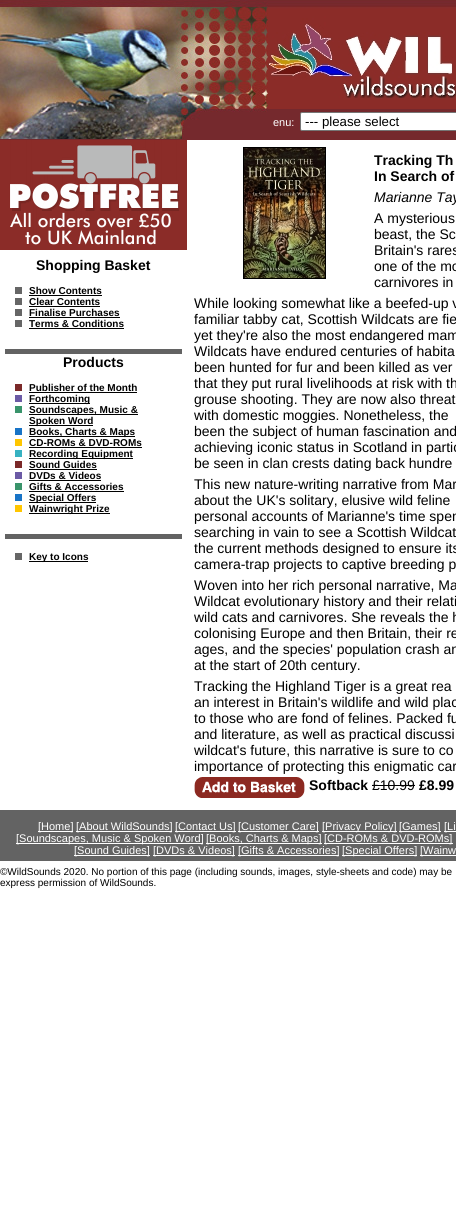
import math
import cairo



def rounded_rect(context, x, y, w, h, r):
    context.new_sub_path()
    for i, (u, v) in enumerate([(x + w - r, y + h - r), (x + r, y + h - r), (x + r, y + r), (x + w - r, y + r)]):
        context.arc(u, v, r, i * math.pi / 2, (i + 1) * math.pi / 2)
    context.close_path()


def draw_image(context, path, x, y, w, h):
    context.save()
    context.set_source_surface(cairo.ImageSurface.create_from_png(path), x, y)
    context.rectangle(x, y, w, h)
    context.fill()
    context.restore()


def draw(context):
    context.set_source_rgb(1, 1, 1)
    context.paint()
    context.set_source_rgb(139 / 255, 44 / 255, 40 / 255)
    context.rectangle(268, 99, 188, 10)
    context.fill()
    draw_image(context, "images/1.png", 268, 0, 188, 5)
    context.set_source_rgb(117 / 255, 41 / 255, 45 / 255)
    context.rectangle(0, 139, 268, 1)
    context.fill()
    draw_image(context, "images/2.png", 0, 0, 268, 139)
    draw_image(context, "images/3.png", 268, 5, 188, 94)
    context.rectangle(268, 109, 188, 31)
    context.fill()
    context.set_source_rgb(1, 1, 1)
    rounded_rect(context, 300.5, 112.5, 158, 18, 1.5)
    context.fill_preserve()
    context.set_source_rgb(118 / 255, 118 / 255, 118 / 255)
    context.set_line_width(1)
    context.stroke()
    draw_image(context, "images/4.png", 0, 140, 187, 110)
    context.set_source_rgb(102 / 255, 102 / 255, 102 / 255)
    context.rectangle(15, 287, 7, 7)
    context.fill()
    context.set_source_rgb(0, 0, 0)
    context.rectangle(29, 295, 73, 1)
    context.fill()
    context.set_source_rgb(102 / 255, 102 / 255, 102 / 255)
    context.rectangle(15, 298, 7, 7)
    context.fill()
    context.set_source_rgb(0, 0, 0)
    context.rectangle(29, 306, 71, 1)
    context.fill()
    context.set_source_rgb(102 / 255, 102 / 255, 102 / 255)
    context.rectangle(15, 309, 7, 7)
    context.fill()
    context.set_source_rgb(0, 0, 0)
    context.rectangle(29, 317, 91, 1)
    context.fill()
    context.set_source_rgb(102 / 255, 102 / 255, 102 / 255)
    context.rectangle(15, 320, 7, 7)
    context.fill()
    context.set_source_rgb(0, 0, 0)
    context.rectangle(29, 328, 95, 1)
    context.fill()
    context.set_source_rgb(99 / 255, 99 / 255, 99 / 255)
    context.rectangle(5, 349, 177, 5)
    context.fill()
    context.set_source_rgb(123 / 255, 41 / 255, 41 / 255)
    context.rectangle(15, 384, 7, 7)
    context.fill()
    context.set_source_rgb(0, 0, 0)
    context.rectangle(29, 392, 108, 1)
    context.fill()
    context.set_source_rgb(107 / 255, 90 / 255, 165 / 255)
    context.rectangle(15, 395, 7, 7)
    context.fill()
    context.set_source_rgb(0, 0, 0)
    context.rectangle(29, 403, 61, 1)
    context.fill()
    context.set_source_rgb(57 / 255, 148 / 255, 107 / 255)
    context.rectangle(15, 406, 7, 7)
    context.fill()
    context.set_source_rgb(0, 0, 0)
    context.rectangle(29, 414, 109, 1)
    context.fill()
    context.rectangle(29, 425, 64, 1)
    context.fill()
    context.set_source_rgb(24 / 255, 116 / 255, 199 / 255)
    context.rectangle(15, 428, 7, 7)
    context.fill()
    context.set_source_rgb(0, 0, 0)
    context.rectangle(29, 436, 106, 1)
    context.fill()
    context.set_source_rgb(1, 198 / 255, 0)
    context.rectangle(15, 439, 7, 7)
    context.fill()
    context.set_source_rgb(0, 0, 0)
    context.rectangle(29, 447, 113, 1)
    context.fill()
    context.set_source_rgb(55 / 255, 178 / 255, 194 / 255)
    context.rectangle(15, 450, 7, 7)
    context.fill()
    context.set_source_rgb(0, 0, 0)
    context.rectangle(29, 458, 104, 1)
    context.fill()
    context.set_source_rgb(123 / 255, 41 / 255, 41 / 255)
    context.rectangle(15, 461, 7, 7)
    context.fill()
    context.set_source_rgb(0, 0, 0)
    context.rectangle(29, 469, 68, 1)
    context.fill()
    context.set_source_rgb(107 / 255, 90 / 255, 165 / 255)
    context.rectangle(15, 472, 7, 7)
    context.fill()
    context.set_source_rgb(0, 0, 0)
    context.rectangle(29, 480, 72, 1)
    context.fill()
    context.set_source_rgb(57 / 255, 148 / 255, 107 / 255)
    context.rectangle(15, 483, 7, 7)
    context.fill()
    context.set_source_rgb(0, 0, 0)
    context.rectangle(29, 491, 95, 1)
    context.fill()
    context.set_source_rgb(24 / 255, 116 / 255, 199 / 255)
    context.rectangle(15, 494, 7, 7)
    context.fill()
    context.set_source_rgb(0, 0, 0)
    context.rectangle(29, 502, 67, 1)
    context.fill()
    context.set_source_rgb(1, 198 / 255, 0)
    context.rectangle(15, 505, 7, 7)
    context.fill()
    context.set_source_rgb(0, 0, 0)
    context.rectangle(29, 513, 81, 1)
    context.fill()
    context.set_source_rgb(99 / 255, 99 / 255, 99 / 255)
    context.rectangle(5, 534, 177, 5)
    context.fill()
    context.set_source_rgb(102 / 255, 102 / 255, 102 / 255)
    context.rectangle(15, 553, 7, 7)
    context.fill()
    context.set_source_rgb(0, 0, 0)
    context.rectangle(29, 561, 59, 1)
    context.fill()
    context.rectangle(243.5, 147.5, 82, 131)
    context.stroke()
    draw_image(context, "images/5.png", 244, 148, 81, 130)
    draw_image(context, "images/6.png", 194, 777, 111, 21)
    context.rectangle(372, 785, 43, 1)
    context.fill()
    context.set_source_rgb(99 / 255, 99 / 255, 99 / 255)
    context.rectangle(0, 810, 456, 51)
    context.fill()
    context.set_source_rgb(1, 1, 1)
    context.rectangle(38, 831, 35, 1)
    context.fill()
    context.rectangle(76, 831, 96, 1)
    context.fill()
    context.rectangle(175, 831, 61, 1)
    context.fill()
    context.rectangle(238, 831, 81, 1)
    context.fill()
    context.rectangle(322, 831, 75, 1)
    context.fill()
    context.rectangle(399, 831, 42, 1)
    context.fill()
    context.rectangle(444, 831, 12, 1)
    context.fill()
    context.rectangle(16, 843, 187, 1)
    context.fill()
    context.rectangle(206, 843, 116, 1)
    context.fill()
    context.rectangle(324, 843, 129, 1)
    context.fill()
    context.rectangle(74, 855, 76, 1)
    context.fill()
    context.rectangle(153, 855, 82, 1)
    context.fill()
    context.rectangle(238, 855, 101, 1)
    context.fill()
    context.rectangle(342, 855, 75, 1)
    context.fill()
    context.rectangle(420, 855, 36, 1)
    context.fill()
    context.select_font_face("Liberation Sans")
    context.set_font_size(11)
    context.move_to(273, 126)
    context.show_text("enu:")
    context.set_font_size(13.25)
    context.set_source_rgb(0, 0, 0)
    context.move_to(305, 126)
    context.show_text("--- please select")
    context.select_font_face("Liberation Sans", cairo.FontSlant.NORMAL, cairo.FontWeight.BOLD)
    context.set_font_size(14)
    context.move_to(36, 270)
    context.show_text("Shopping Basket")
    context.set_font_size(10)
    context.move_to(29, 294)
    context.show_text("Show Contents")
    context.move_to(29, 305)
    context.show_text("Clear Contents")
    context.move_to(29, 316)
    context.show_text("Finalise Purchases")
    context.move_to(29, 327)
    context.show_text("Terms & Conditions")
    context.set_font_size(14)
    context.move_to(63, 367)
    context.show_text("Products")
    context.set_font_size(10)
    context.move_to(29, 391)
    context.show_text("Publisher of the Month")
    context.move_to(29, 402)
    context.show_text("Forthcoming")
    context.move_to(29, 413)
    context.show_text("Soundscapes, Music &")
    context.move_to(29, 424)
    context.show_text("Spoken Word")
    context.move_to(29, 435)
    context.show_text("Books, Charts & Maps")
    context.move_to(29, 446)
    context.show_text("CD-ROMs & DVD-ROMs")
    context.move_to(29, 457)
    context.show_text("Recording Equipment")
    context.move_to(29, 468)
    context.show_text("Sound Guides")
    context.move_to(29, 479)
    context.show_text("DVDs & Videos")
    context.move_to(29, 490)
    context.show_text("Gifts & Accessories")
    context.move_to(29, 501)
    context.show_text("Special Offers")
    context.move_to(29, 512)
    context.show_text("Wainwright Prize")
    context.move_to(29, 560)
    context.show_text("Key to Icons")
    context.set_font_size(14)
    context.move_to(374, 165)
    context.show_text("Tracking Th")
    context.move_to(374, 181)
    context.show_text("In Search of")
    context.select_font_face("Liberation Sans", cairo.FontSlant.ITALIC)
    context.move_to(374, 202)
    context.show_text("Marianne Tay")
    context.select_font_face("Liberation Sans")
    context.move_to(374, 223)
    context.show_text("A mysterious")
    context.move_to(374, 239)
    context.show_text("beast, the Sc")
    context.move_to(374, 255)
    context.show_text("Britain's rares")
    context.move_to(374, 271)
    context.show_text("one of the mo")
    context.move_to(374, 287)
    context.show_text("carnivores in")
    context.move_to(194, 308)
    context.show_text("While looking somewhat like a beefed-up v")
    context.move_to(194, 324)
    context.show_text("familiar tabby cat, Scottish Wildcats are fie")
    context.move_to(194, 340)
    context.show_text("yet they're also the most endangered mam")
    context.move_to(194, 356)
    context.show_text("Wildcats have endured centuries of habita")
    context.move_to(194, 372)
    context.show_text("been hunted for fur and been killed as ver")
    context.move_to(194, 388)
    context.show_text("that they put rural livelihoods at risk with th")
    context.move_to(194, 404)
    context.show_text("grouse shooting. They are now also threat")
    context.move_to(194, 420)
    context.show_text("with domestic moggies. Nonetheless, the")
    context.move_to(194, 436)
    context.show_text("been the subject of human fascination and")
    context.move_to(194, 452)
    context.show_text("achieving iconic status in Scotland in partic")
    context.move_to(194, 468)
    context.show_text("be seen in clan crests dating back hundre")
    context.move_to(194, 489)
    context.show_text("This new nature-writing narrative from Mar")
    context.move_to(194, 505)
    context.show_text("about the UK's solitary, elusive wild feline")
    context.move_to(194, 521)
    context.show_text("personal accounts of Marianne's time spen")
    context.move_to(194, 537)
    context.show_text("searching in vain to see a Scottish Wildcat")
    context.move_to(194, 553)
    context.show_text("the current methods designed to ensure its")
    context.move_to(194, 569)
    context.show_text("camera-trap projects to captive breeding p")
    context.move_to(194, 590)
    context.show_text("Woven into her rich personal narrative, Ma")
    context.move_to(194, 606)
    context.show_text("Wildcat evolutionary history and their relati")
    context.move_to(194, 622)
    context.show_text("wild cats and carnivores. She reveals the h")
    context.move_to(194, 638)
    context.show_text("colonising Europe and then Britain, their re")
    context.move_to(194, 654)
    context.show_text("ages, and the species' population crash an")
    context.move_to(194, 670)
    context.show_text("at the start of 20th century.")
    context.move_to(194, 691)
    context.show_text("Tracking the Highland Tiger is a great rea")
    context.move_to(194, 707)
    context.show_text("an interest in Britain's wildlife and wild plac")
    context.move_to(194, 723)
    context.show_text("to those who are fond of felines. Packed fu")
    context.move_to(194, 739)
    context.show_text("and literature, as well as practical discussi")
    context.move_to(194, 755)
    context.show_text("wildcat's future, this narrative is sure to co")
    context.move_to(194, 771)
    context.show_text("importance of protecting this enigmatic car")
    context.select_font_face("Liberation Sans", cairo.FontSlant.NORMAL, cairo.FontWeight.BOLD)
    context.move_to(309, 790)
    context.show_text("Softback")
    context.select_font_face("Liberation Sans")
    context.move_to(372, 790)
    context.show_text("£10.99")
    context.select_font_face("Liberation Sans", cairo.FontSlant.NORMAL, cairo.FontWeight.BOLD)
    context.move_to(419, 790)
    context.show_text("£8.99")
    context.select_font_face("Liberation Sans")
    context.set_font_size(11)
    context.set_source_rgb(1, 1, 1)
    context.move_to(38, 830)
    context.show_text("[Home]")
    context.move_to(76, 830)
    context.show_text("[About WildSounds]")
    context.move_to(175, 830)
    context.show_text("[Contact Us]")
    context.move_to(238, 830)
    context.show_text("[Customer Care]")
    context.move_to(322, 830)
    context.show_text("[Privacy Policy]")
    context.move_to(399, 830)
    context.show_text("[Games]")
    context.move_to(444, 830)
    context.show_text("[Li")
    context.move_to(16, 842)
    context.show_text("[Soundscapes, Music & Spoken Word]")
    context.move_to(206, 842)
    context.show_text("[Books, Charts & Maps]")
    context.move_to(324, 842)
    context.show_text("[CD-ROMs & DVD-ROMs]")
    context.move_to(74, 854)
    context.show_text("[Sound Guides]")
    context.move_to(153, 854)
    context.show_text("[DVDs & Videos]")
    context.move_to(238, 854)
    context.show_text("[Gifts & Accessories]")
    context.move_to(342, 854)
    context.show_text("[Special Offers]")
    context.move_to(420, 854)
    context.show_text("[Wainw")
    context.set_font_size(10)
    context.set_source_rgb(0, 0, 0)
    context.move_to(0, 875)
    context.show_text("©WildSounds 2020. No portion of this page (including sounds, images, style-sheets and code) may be")
    context.move_to(0, 886)
    context.show_text("express permission of WildSounds.")


surface = cairo.ImageSurface(cairo.Format.RGB24, 456, 1226)
context = cairo.Context(surface)
options = cairo.FontOptions()
options.set_hint_metrics(cairo.HintMetrics.OFF)
options.set_hint_style(cairo.HintStyle.NONE)
context.set_font_options(options)
context.set_miter_limit(4)
draw(context)
surface.write_to_png("out.png")
